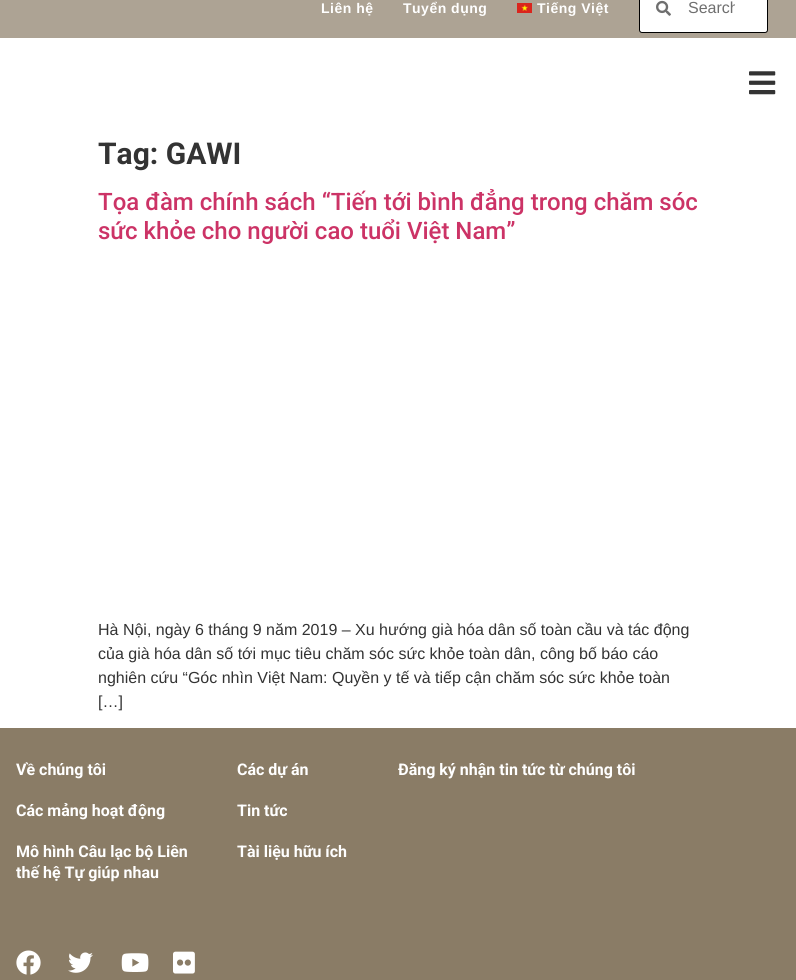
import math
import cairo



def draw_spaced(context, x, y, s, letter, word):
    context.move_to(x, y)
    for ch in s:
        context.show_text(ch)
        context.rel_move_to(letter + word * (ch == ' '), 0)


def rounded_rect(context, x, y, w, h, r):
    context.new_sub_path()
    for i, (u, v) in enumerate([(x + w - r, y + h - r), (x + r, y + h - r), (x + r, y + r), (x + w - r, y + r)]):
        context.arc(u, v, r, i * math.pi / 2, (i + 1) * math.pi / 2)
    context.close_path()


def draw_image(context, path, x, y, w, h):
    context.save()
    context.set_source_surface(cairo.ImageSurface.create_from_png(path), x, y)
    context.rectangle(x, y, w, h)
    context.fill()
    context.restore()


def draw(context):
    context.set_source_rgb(1, 1, 1)
    context.paint()
    context.set_source_rgb(173 / 255, 163 / 255, 148 / 255)
    context.rectangle(0, 0, 796, 38)
    context.fill()
    draw_image(context, "images/1.png", 517, 3, 15, 10)
    context.set_source_rgb(1, 1, 1)
    rounded_rect(context, 639.5, -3.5, 128, 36, 2.5)
    context.fill_preserve()
    context.set_source_rgb(0, 0, 0)
    context.set_line_width(1)
    context.stroke()
    draw_image(context, "images/2.png", 656, 0, 15, 16)
    draw_image(context, "images/3.png", 749, 71, 27, 24)
    context.set_source_rgb(138 / 255, 124 / 255, 102 / 255)
    context.rectangle(0, 728, 796, 252)
    context.fill()
    draw_image(context, "images/4.png", 16, 950, 25, 25)
    draw_image(context, "images/5.png", 68, 952, 25, 21)
    draw_image(context, "images/6.png", 121, 953, 28, 19)
    draw_image(context, "images/7.png", 173, 951, 22, 23)
    context.select_font_face("Liberation Sans", cairo.FontSlant.NORMAL, cairo.FontWeight.BOLD)
    context.set_font_size(14)
    context.set_source_rgb(1, 1, 1)
    draw_spaced(context, 321, 13, "Liên hệ", 0.5, 0)
    draw_spaced(context, 403, 13, "Tuyển dụng", 0.5, 0)
    draw_spaced(context, 537, 13, "Tiếng Việt", 0.5, 0)
    context.save()
    context.rectangle(688, 0, 47, 17)
    context.clip()
    context.select_font_face("Liberation Sans")
    context.set_font_size(16)
    context.set_source_rgb(111 / 255, 111 / 255, 111 / 255)
    context.move_to(688, 13)
    context.show_text("Search")
    context.restore()
    context.select_font_face("Roboto", cairo.FontSlant.NORMAL, cairo.FontWeight.BOLD)
    context.set_font_size(30)
    context.set_source_rgb(51 / 255, 51 / 255, 51 / 255)
    context.move_to(98, 164)
    context.show_text("Tag: GAWI")
    context.select_font_face("Roboto Medium")
    context.set_font_size(24)
    context.set_source_rgb(204 / 255, 51 / 255, 102 / 255)
    context.move_to(98, 210)
    context.show_text("Tọa đàm chính sách “Tiến tới bình đẳng trong chăm sóc")
    context.move_to(98, 239)
    context.show_text("sức khỏe cho người cao tuổi Việt Nam”")
    context.select_font_face("Liberation Sans")
    context.set_font_size(16)
    context.set_source_rgb(51 / 255, 51 / 255, 51 / 255)
    context.move_to(98, 635)
    context.show_text("Hà Nội, ngày 6 tháng 9 năm 2019 – Xu hướng già hóa dân số toàn cầu và tác động")
    context.move_to(98, 659)
    context.show_text("của già hóa dân số tới mục tiêu chăm sóc sức khỏe toàn dân, công bố báo cáo")
    context.move_to(98, 683)
    context.show_text("nghiên cứu “Góc nhìn Việt Nam: Quyền y tế và tiếp cận chăm sóc sức khỏe toàn")
    context.move_to(98, 707)
    context.show_text("[…]")
    context.select_font_face("Roboto", cairo.FontSlant.NORMAL, cairo.FontWeight.BOLD)
    context.set_source_rgb(1, 1, 1)
    context.move_to(16, 775)
    context.show_text("Về chúng tôi")
    context.move_to(16, 816)
    context.show_text("Các mảng hoạt động")
    context.move_to(16, 857)
    context.show_text("Mô hình Câu lạc bộ Liên")
    context.move_to(16, 878)
    context.show_text("thế hệ Tự giúp nhau")
    context.move_to(237, 775)
    context.show_text("Các dự án")
    context.move_to(237, 816)
    context.show_text("Tin tức")
    context.move_to(237, 857)
    context.show_text("Tài liệu hữu ích")
    context.move_to(398, 775)
    context.show_text("Đăng ký nhận tin tức từ chúng tôi")


surface = cairo.ImageSurface(cairo.Format.RGB24, 796, 980)
context = cairo.Context(surface)
options = cairo.FontOptions()
options.set_hint_metrics(cairo.HintMetrics.OFF)
options.set_hint_style(cairo.HintStyle.NONE)
context.set_font_options(options)
context.set_miter_limit(4)
draw(context)
surface.write_to_png("out.png")
